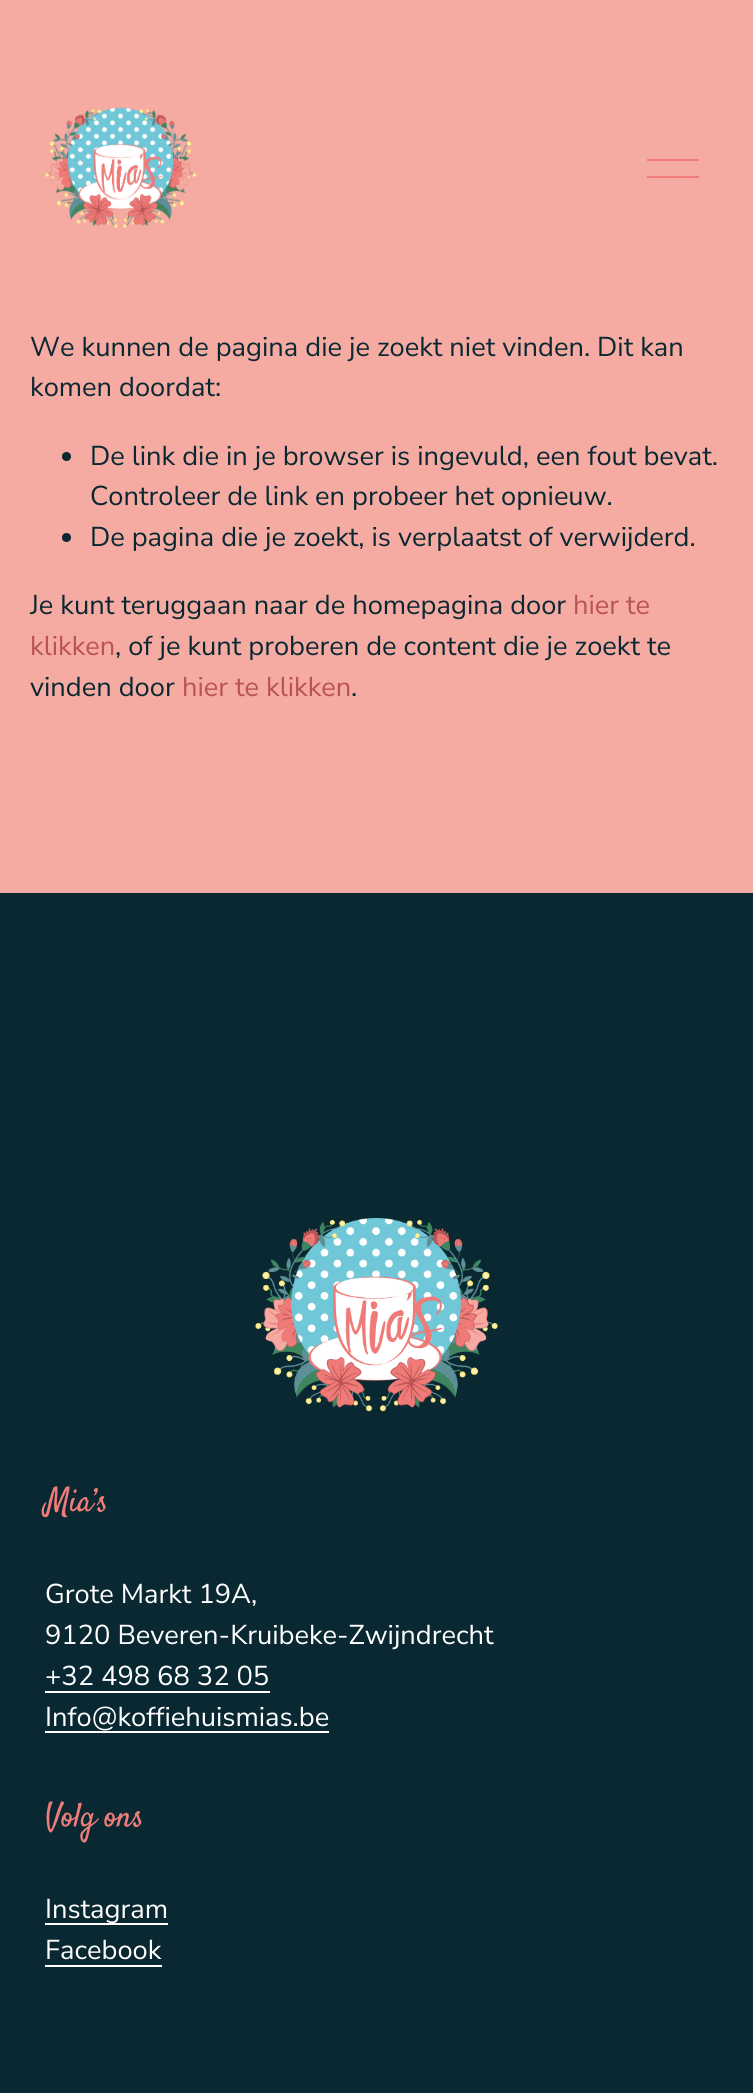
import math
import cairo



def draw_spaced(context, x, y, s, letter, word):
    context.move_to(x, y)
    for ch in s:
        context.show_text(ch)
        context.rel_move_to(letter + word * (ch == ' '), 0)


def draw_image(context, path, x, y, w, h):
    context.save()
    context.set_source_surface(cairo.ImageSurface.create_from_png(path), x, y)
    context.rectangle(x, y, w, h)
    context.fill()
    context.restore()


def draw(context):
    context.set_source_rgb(245 / 255, 170 / 255, 162 / 255)
    context.paint()
    draw_image(context, "images/1.png", 45, 107, 152, 121)
    context.set_source_rgb(239 / 255, 124 / 255, 120 / 255)
    context.rectangle(647, 159, 52, 2)
    context.fill()
    context.rectangle(647, 176, 52, 2)
    context.fill()
    context.set_source_rgb(10 / 255, 40 / 255, 50 / 255)
    context.arc(66.5, 456.5, 4.5, 0, 2 * math.pi)
    context.fill()
    context.arc(66.5, 537.5, 4.5, 0, 2 * math.pi)
    context.fill()
    context.rectangle(0, 893, 753, 1200)
    context.fill()
    draw_image(context, "images/2.png", 255, 1218, 243, 194)
    context.set_source_rgb(1, 1, 1)
    context.rectangle(45, 1691, 225, 2)
    context.fill()
    context.rectangle(45, 1731, 284, 2)
    context.fill()
    context.rectangle(45, 1923, 123, 2)
    context.fill()
    context.rectangle(45, 1965, 117, 2)
    context.fill()
    context.select_font_face("Nunito Sans")
    context.set_font_size(27.25)
    context.set_source_rgb(10 / 255, 40 / 255, 50 / 255)
    context.move_to(30, 356)
    context.show_text("We kunnen de pagina die je zoekt niet vinden. Dit kan")
    context.move_to(30, 396)
    context.show_text("komen doordat:")
    context.move_to(90, 465)
    context.show_text("De link die in je browser is ingevuld, een fout bevat.")
    context.move_to(90, 505)
    context.show_text("Controleer de link en probeer het opnieuw.")
    context.move_to(90, 546)
    context.show_text("De pagina die je zoekt, is verplaatst of verwijderd.")
    context.move_to(30, 614)
    context.show_text("Je kunt teruggaan naar de homepagina door")
    context.set_source_rgb(186 / 255, 84 / 255, 84 / 255)
    context.move_to(573, 614)
    context.show_text("hier te")
    context.move_to(30, 655)
    context.show_text("klikken")
    context.set_source_rgb(10 / 255, 40 / 255, 50 / 255)
    context.move_to(115, 655)
    context.show_text(", of je kunt proberen de content die je zoekt te")
    context.move_to(30, 696)
    context.show_text("vinden door")
    context.set_source_rgb(186 / 255, 84 / 255, 84 / 255)
    context.move_to(182, 696)
    context.show_text("hier te klikken")
    context.set_source_rgb(10 / 255, 40 / 255, 50 / 255)
    context.move_to(351, 696)
    context.show_text(".")
    context.select_font_face("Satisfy")
    context.set_font_size(34)
    context.set_source_rgb(239 / 255, 124 / 255, 120 / 255)
    draw_spaced(context, 45, 1511, "Mia’s", -0.75, 0)
    context.select_font_face("Nunito Sans")
    context.set_font_size(27.25)
    context.set_source_rgb(1, 1, 1)
    context.move_to(45, 1603)
    context.show_text("Grote Markt 19A,")
    context.move_to(45, 1644)
    context.show_text("9120 Beveren-Kruibeke-Zwijndrecht")
    context.move_to(45, 1685)
    context.show_text("+32 498 68 32 05")
    context.move_to(45, 1726)
    context.show_text("Info@koffiehuismias.be")
    context.select_font_face("Satisfy")
    context.set_font_size(34)
    context.set_source_rgb(239 / 255, 124 / 255, 120 / 255)
    draw_spaced(context, 45, 1826, "Volg ons", -0.75, 0)
    context.select_font_face("Nunito Sans")
    context.set_font_size(27.25)
    context.set_source_rgb(1, 1, 1)
    context.move_to(45, 1918)
    context.show_text("Instagram")
    context.move_to(45, 1959)
    context.show_text("Facebook")


surface = cairo.ImageSurface(cairo.Format.RGB24, 753, 2093)
context = cairo.Context(surface)
options = cairo.FontOptions()
options.set_hint_metrics(cairo.HintMetrics.OFF)
options.set_hint_style(cairo.HintStyle.NONE)
context.set_font_options(options)
context.set_miter_limit(4)
draw(context)
surface.write_to_png("out.png")
